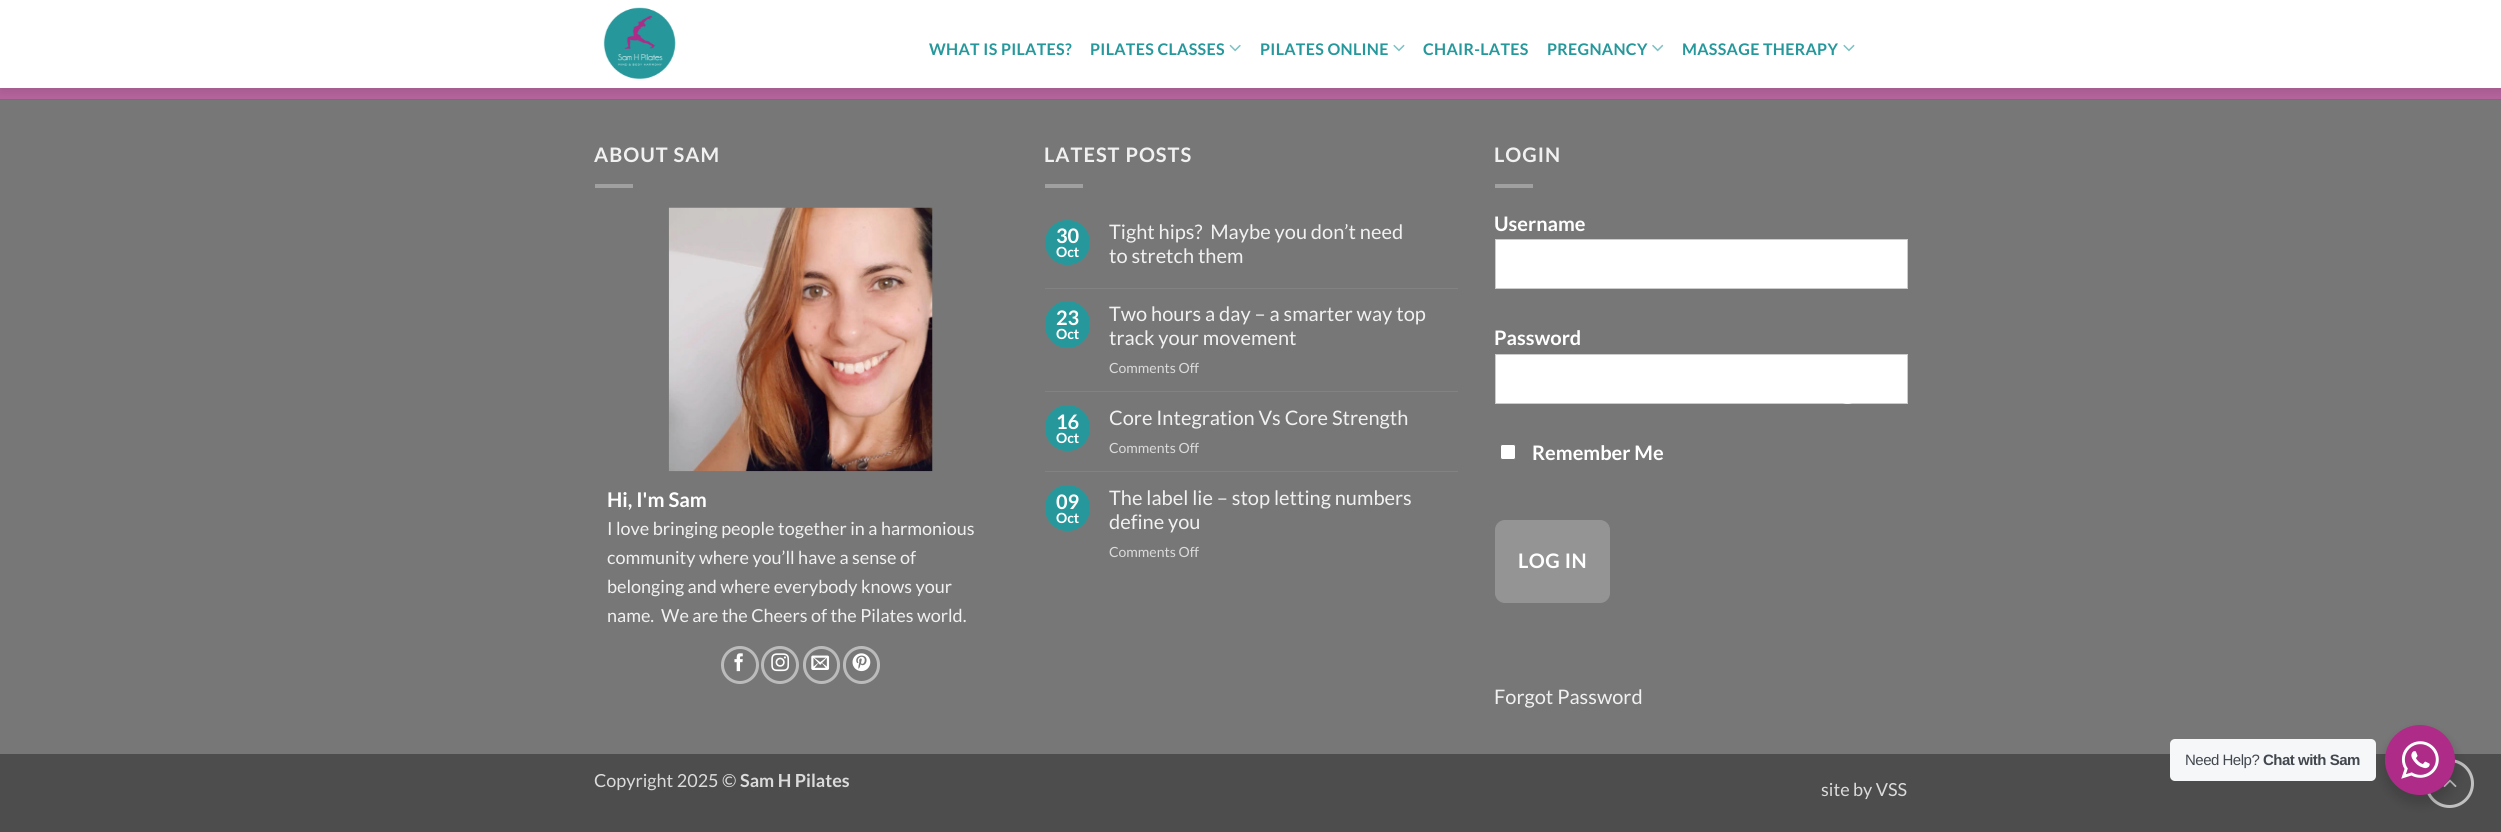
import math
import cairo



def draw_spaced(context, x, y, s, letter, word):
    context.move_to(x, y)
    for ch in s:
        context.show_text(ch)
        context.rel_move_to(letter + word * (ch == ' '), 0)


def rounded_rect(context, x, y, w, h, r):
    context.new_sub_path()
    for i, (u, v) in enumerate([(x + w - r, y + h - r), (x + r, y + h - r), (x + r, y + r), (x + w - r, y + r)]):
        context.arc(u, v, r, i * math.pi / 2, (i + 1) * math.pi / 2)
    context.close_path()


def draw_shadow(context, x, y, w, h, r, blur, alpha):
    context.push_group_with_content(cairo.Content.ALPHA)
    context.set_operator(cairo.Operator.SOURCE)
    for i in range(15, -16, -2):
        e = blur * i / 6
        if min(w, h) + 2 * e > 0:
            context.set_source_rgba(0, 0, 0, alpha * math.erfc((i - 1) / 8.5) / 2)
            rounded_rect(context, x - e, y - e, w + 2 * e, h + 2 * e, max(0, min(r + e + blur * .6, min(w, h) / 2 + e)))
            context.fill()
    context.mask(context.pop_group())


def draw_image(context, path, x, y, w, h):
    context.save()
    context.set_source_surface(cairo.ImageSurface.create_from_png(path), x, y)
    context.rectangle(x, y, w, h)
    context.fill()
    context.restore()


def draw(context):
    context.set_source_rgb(180 / 255, 100 / 255, 156 / 255)
    context.paint()
    context.set_source_rgb(119 / 255, 119 / 255, 119 / 255)
    context.rectangle(0, 100, 2501, 654)
    context.fill()
    context.set_source_rgb(113 / 255, 113 / 255, 113 / 255)
    context.rectangle(0, 99, 2501, 1)
    context.fill()
    context.set_source_rgb(0, 0, 0)
    draw_shadow(context, 1, 1, 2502, 88, 0, 6, 0.15)
    context.set_source_rgb(1, 1, 1)
    context.rectangle(0, 0, 2501, 88)
    context.fill()
    draw_image(context, "images/1.png", 603, 7, 73, 72)
    draw_image(context, "images/2.png", 1229, 44, 12, 8)
    draw_image(context, "images/3.png", 1393, 44, 12, 8)
    draw_image(context, "images/4.png", 1652, 44, 12, 8)
    draw_image(context, "images/3.png", 1843, 44, 12, 8)
    context.set_source_rgb(160 / 255, 160 / 255, 160 / 255)
    context.rectangle(595, 184, 38, 4)
    context.fill()
    draw_image(context, "images/5.png", 668, 207, 265, 265)
    context.arc(740, 665, 17.5, 0, 2 * math.pi)
    context.set_source_rgb(187 / 255, 187 / 255, 187 / 255)
    context.set_line_width(3)
    context.stroke()
    draw_image(context, "images/6.png", 734, 653, 9, 19)
    context.arc(780, 665, 17.5, 0, 2 * math.pi)
    context.stroke()
    draw_image(context, "images/7.png", 771, 653, 19, 19)
    rounded_rect(context, 804.5, 647.5, 34, 35, 17)
    context.stroke()
    draw_image(context, "images/8.png", 811, 655, 19, 15)
    rounded_rect(context, 844.5, 647.5, 34, 35, 17)
    context.stroke()
    draw_image(context, "images/9.png", 852, 653, 19, 19)
    context.set_source_rgb(160 / 255, 160 / 255, 160 / 255)
    context.rectangle(1045, 184, 38, 4)
    context.fill()
    context.set_source_rgb(38 / 255, 152 / 255, 155 / 255)
    context.arc(1067.5, 242.5, 22.5, 0, 2 * math.pi)
    context.fill()
    context.set_source_rgb(130 / 255, 130 / 255, 130 / 255)
    context.rectangle(1045, 288, 413, 1)
    context.fill()
    context.set_source_rgb(38 / 255, 152 / 255, 155 / 255)
    rounded_rect(context, 1045, 301, 45, 47, 22.5)
    context.fill()
    context.set_source_rgb(130 / 255, 130 / 255, 130 / 255)
    context.rectangle(1045, 391, 413, 1)
    context.fill()
    context.set_source_rgb(38 / 255, 152 / 255, 155 / 255)
    rounded_rect(context, 1045, 405, 45, 46, 22.5)
    context.fill()
    context.set_source_rgb(130 / 255, 130 / 255, 130 / 255)
    context.rectangle(1045, 471, 413, 1)
    context.fill()
    context.set_source_rgb(38 / 255, 152 / 255, 155 / 255)
    rounded_rect(context, 1045, 485, 45, 46, 22.5)
    context.fill()
    context.set_source_rgb(160 / 255, 160 / 255, 160 / 255)
    context.rectangle(1495, 184, 38, 4)
    context.fill()
    context.set_source_rgb(1, 1, 1)
    context.rectangle(1495.5, 239.5, 412, 49)
    context.fill_preserve()
    context.set_source_rgb(204 / 255, 204 / 255, 204 / 255)
    context.set_line_width(1)
    context.stroke()
    context.set_source_rgb(1, 1, 1)
    context.rectangle(1495.5, 354.5, 412, 49)
    context.fill_preserve()
    context.set_source_rgb(204 / 255, 204 / 255, 204 / 255)
    context.stroke()
    draw_image(context, "images/10.png", 1843, 403, 9, 1)
    context.set_source_rgb(1, 1, 1)
    rounded_rect(context, 1500.5, 444.5, 15, 15, 2)
    context.fill_preserve()
    context.set_source_rgb(118 / 255, 118 / 255, 118 / 255)
    context.stroke()
    context.set_source_rgb(148 / 255, 148 / 255, 148 / 255)
    rounded_rect(context, 1495.5, 520.5, 114, 82, 9.5)
    context.fill_preserve()
    context.stroke()
    context.set_source_rgb(77 / 255, 77 / 255, 77 / 255)
    context.rectangle(0, 754, 2501, 78)
    context.fill()
    context.arc(2449.5, 783.5, 23, 0, 2 * math.pi)
    context.set_source_rgb(192 / 255, 192 / 255, 192 / 255)
    context.set_line_width(3)
    context.stroke()
    draw_image(context, "images/11.png", 2443, 779, 14, 9)
    context.set_source_rgb(0, 0, 0)
    draw_shadow(context, 2383, 730, 75, 75, 37.5, 5, 0.14)
    context.set_source_rgb(245 / 255, 247 / 255, 249 / 255)
    rounded_rect(context, 2170, 739, 206, 42, 5)
    context.fill()
    context.set_source_rgb(174 / 255, 44 / 255, 136 / 255)
    context.arc(2420, 760, 35, 0, 2 * math.pi)
    context.fill()
    draw_image(context, "images/12.png", 2401, 741, 38, 38)
    context.select_font_face("Lato", cairo.FontSlant.NORMAL, cairo.FontWeight.BOLD)
    context.set_font_size(16)
    context.set_source_rgb(38 / 255, 152 / 255, 155 / 255)
    draw_spaced(context, 929, 55, "WHAT IS PILATES?", 0.3, 0)
    draw_spaced(context, 1090, 55, "PILATES CLASSES", 0.3, 0)
    draw_spaced(context, 1260, 55, "PILATES ONLINE", 0.3, 0)
    draw_spaced(context, 1423, 55, "CHAIR-LATES", 0.3, 0)
    draw_spaced(context, 1547, 55, "PREGNANCY", 0.3, 0)
    draw_spaced(context, 1682, 55, "MASSAGE THERAPY", 0.3, 0)
    context.set_font_size(20)
    context.set_source_rgb(241 / 255, 241 / 255, 241 / 255)
    draw_spaced(context, 594, 162, "ABOUT SAM", 1, 0)
    context.set_font_size(20.25)
    context.set_source_rgb(1, 1, 1)
    context.move_to(607, 507)
    context.show_text("Hi, I'm Sam")
    context.select_font_face("Lato")
    context.set_font_size(18)
    context.set_source_rgb(241 / 255, 241 / 255, 241 / 255)
    context.move_to(607, 535)
    context.show_text("I love bringing people together in a harmonious")
    context.move_to(607, 564)
    context.show_text("community where you’ll have a sense of")
    context.move_to(607, 593)
    context.show_text("belonging and where everybody knows your")
    context.move_to(607, 622)
    context.show_text("name.  We are the Cheers of the Pilates world.")
    context.select_font_face("Lato", cairo.FontSlant.NORMAL, cairo.FontWeight.BOLD)
    context.set_font_size(20)
    draw_spaced(context, 1044, 162, "LATEST POSTS", 1, 0)
    context.set_source_rgb(1, 1, 1)
    context.move_to(1056, 243)
    context.show_text("30")
    context.set_font_size(14)
    context.move_to(1056, 257)
    context.show_text("Oct")
    context.select_font_face("Lato")
    context.set_font_size(20)
    context.set_source_rgb(241 / 255, 241 / 255, 241 / 255)
    context.move_to(1109, 239)
    context.show_text("Tight hips?  Maybe you don’t need")
    context.move_to(1109, 263)
    context.show_text("to stretch them")
    context.select_font_face("Lato", cairo.FontSlant.NORMAL, cairo.FontWeight.BOLD)
    context.set_source_rgb(1, 1, 1)
    context.move_to(1056, 325)
    context.show_text("23")
    context.set_font_size(14)
    context.move_to(1056, 339)
    context.show_text("Oct")
    context.select_font_face("Lato")
    context.set_font_size(20)
    context.set_source_rgb(241 / 255, 241 / 255, 241 / 255)
    context.move_to(1109, 321)
    context.show_text("Two hours a day – a smarter way top")
    context.move_to(1109, 345)
    context.show_text("track your movement")
    context.set_font_size(14)
    context.set_source_rgb(219 / 255, 219 / 255, 219 / 255)
    context.move_to(1109, 373)
    context.show_text("Comments Off")
    context.select_font_face("Lato", cairo.FontSlant.NORMAL, cairo.FontWeight.BOLD)
    context.set_font_size(20)
    context.set_source_rgb(1, 1, 1)
    context.move_to(1056, 429)
    context.show_text("16")
    context.set_font_size(14)
    context.move_to(1056, 443)
    context.show_text("Oct")
    context.select_font_face("Lato")
    context.set_font_size(20)
    context.set_source_rgb(241 / 255, 241 / 255, 241 / 255)
    context.move_to(1109, 425)
    context.show_text("Core Integration Vs Core Strength")
    context.set_font_size(14)
    context.set_source_rgb(219 / 255, 219 / 255, 219 / 255)
    context.move_to(1109, 453)
    context.show_text("Comments Off")
    context.select_font_face("Lato", cairo.FontSlant.NORMAL, cairo.FontWeight.BOLD)
    context.set_font_size(20)
    context.set_source_rgb(1, 1, 1)
    context.move_to(1056, 509)
    context.show_text("09")
    context.set_font_size(14)
    context.move_to(1056, 523)
    context.show_text("Oct")
    context.select_font_face("Lato")
    context.set_font_size(20)
    context.set_source_rgb(241 / 255, 241 / 255, 241 / 255)
    context.move_to(1109, 505)
    context.show_text("The label lie – stop letting numbers")
    context.move_to(1109, 529)
    context.show_text("define you")
    context.set_font_size(14)
    context.set_source_rgb(219 / 255, 219 / 255, 219 / 255)
    context.move_to(1109, 557)
    context.show_text("Comments Off")
    context.select_font_face("Lato", cairo.FontSlant.NORMAL, cairo.FontWeight.BOLD)
    context.set_font_size(20)
    context.set_source_rgb(241 / 255, 241 / 255, 241 / 255)
    draw_spaced(context, 1494, 162, "LOGIN", 1, 0)
    context.set_source_rgb(1, 1, 1)
    context.move_to(1494, 231)
    context.show_text("Username")
    context.move_to(1494, 345)
    context.show_text("Password")
    context.move_to(1532, 460)
    context.show_text("Remember Me")
    draw_spaced(context, 1518, 568, "LOG IN", 0.5, 0)
    context.select_font_face("Lato")
    context.set_source_rgb(241 / 255, 241 / 255, 241 / 255)
    context.move_to(1494, 704)
    context.show_text("Forgot Password")
    context.set_font_size(18)
    context.set_source_rgb(219 / 255, 219 / 255, 219 / 255)
    context.move_to(594, 787)
    context.show_text("Copyright 2025 ©")
    context.select_font_face("Lato", cairo.FontSlant.NORMAL, cairo.FontWeight.BOLD)
    context.move_to(740, 787)
    context.show_text("Sam H Pilates")
    context.select_font_face("Lato")
    context.move_to(1821, 796)
    context.show_text("site by VSS")
    context.select_font_face("Liberation Sans")
    context.set_font_size(15)
    context.set_source_rgb(67 / 255, 71 / 255, 78 / 255)
    draw_spaced(context, 2185, 765, "Need Help?", -0.5, 0)
    context.select_font_face("Liberation Sans", cairo.FontSlant.NORMAL, cairo.FontWeight.BOLD)
    draw_spaced(context, 2263, 765, "Chat with Sam", -0.5, 0)


surface = cairo.ImageSurface(cairo.Format.RGB24, 2501, 832)
context = cairo.Context(surface)
options = cairo.FontOptions()
options.set_hint_metrics(cairo.HintMetrics.OFF)
options.set_hint_style(cairo.HintStyle.NONE)
context.set_font_options(options)
context.set_miter_limit(4)
draw(context)
surface.write_to_png("out.png")
